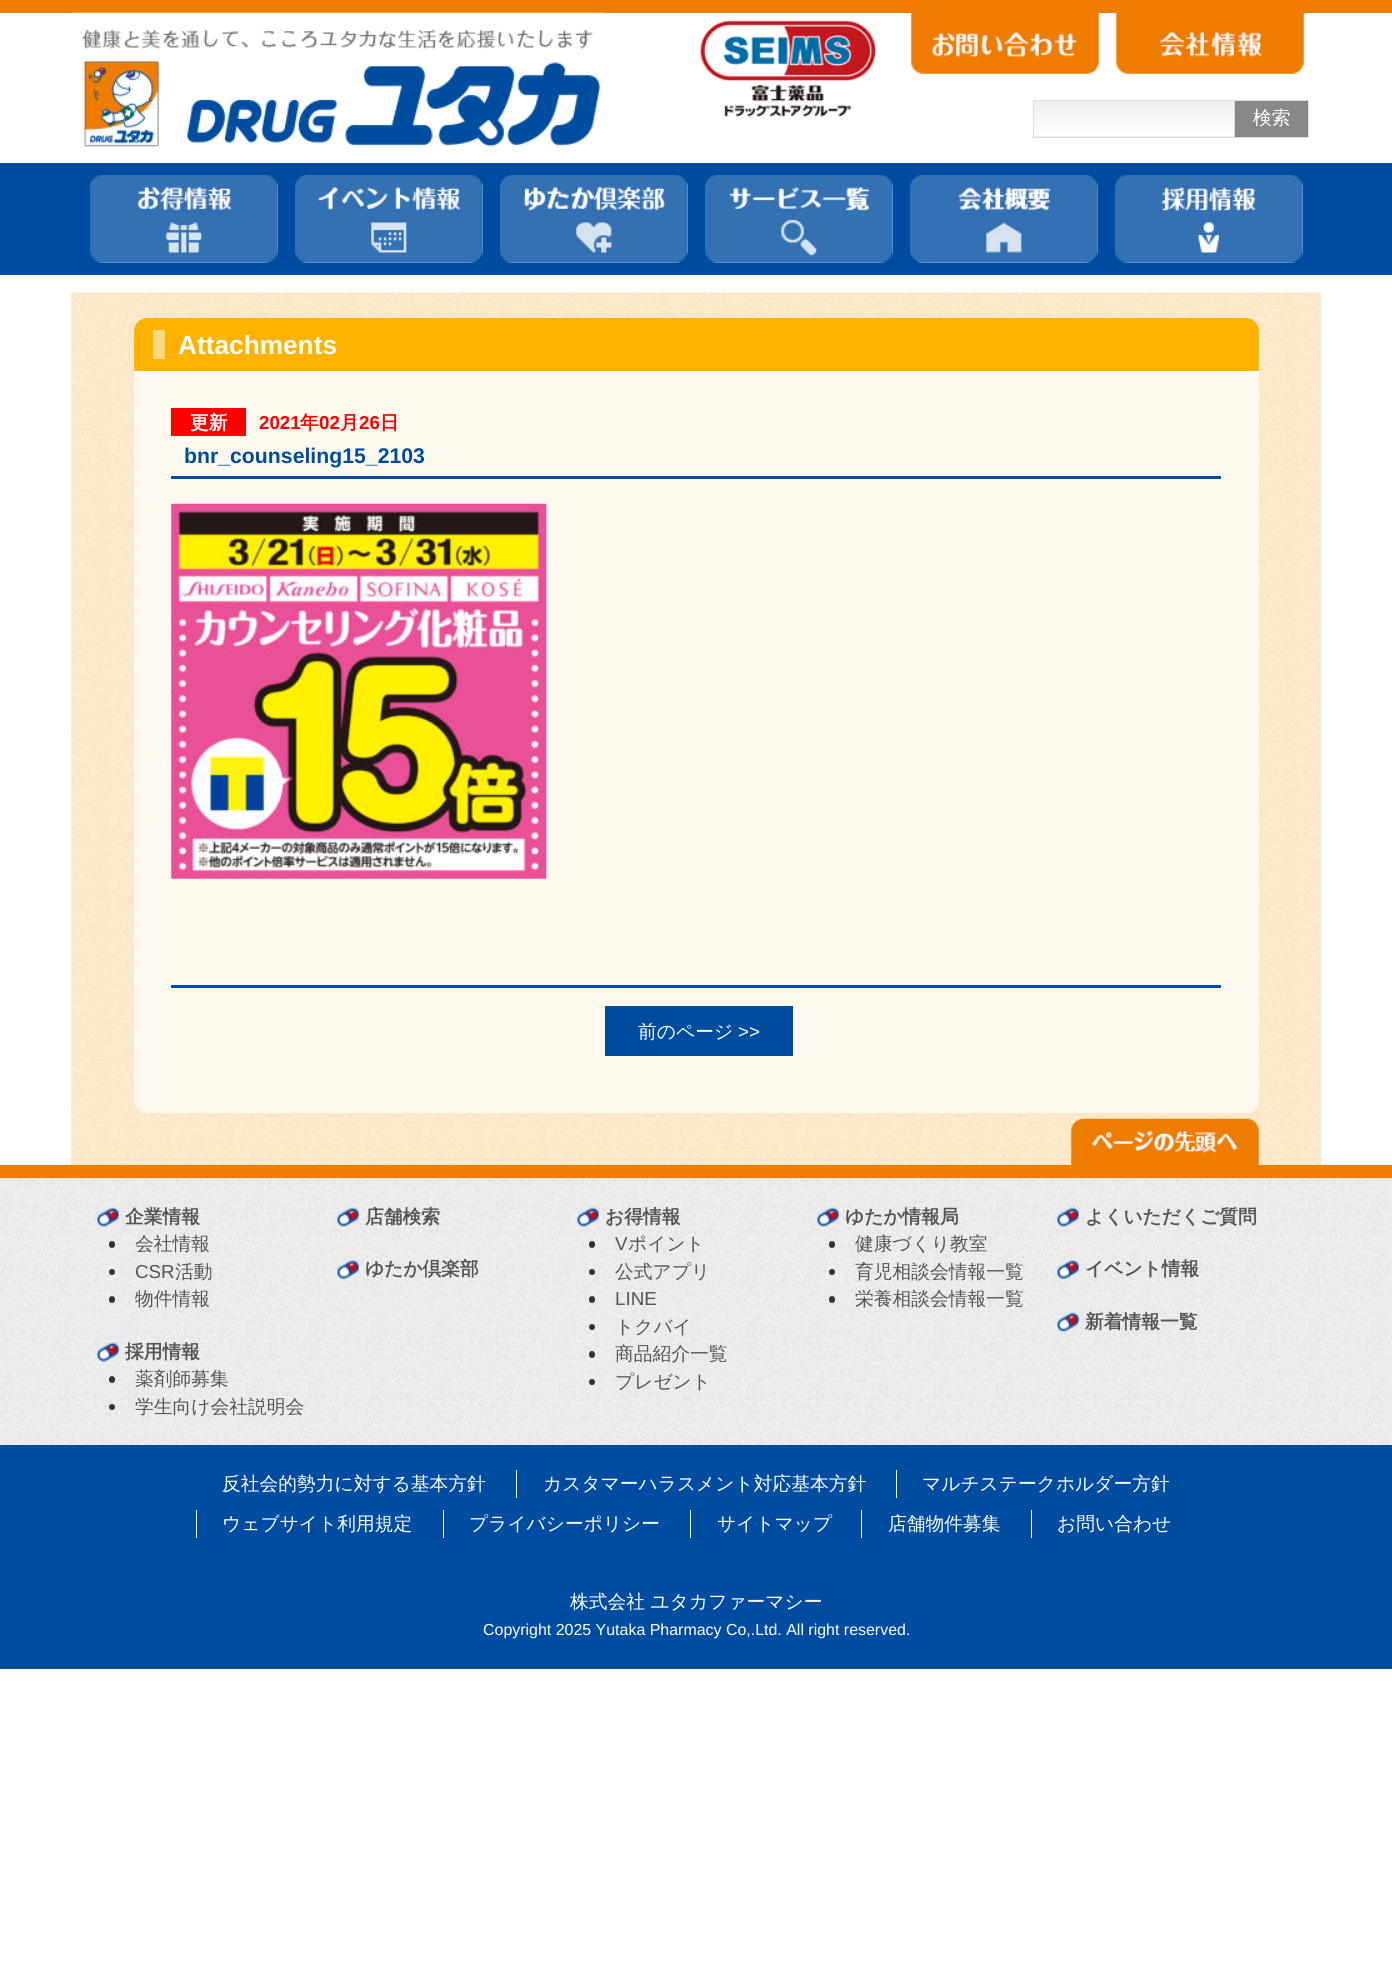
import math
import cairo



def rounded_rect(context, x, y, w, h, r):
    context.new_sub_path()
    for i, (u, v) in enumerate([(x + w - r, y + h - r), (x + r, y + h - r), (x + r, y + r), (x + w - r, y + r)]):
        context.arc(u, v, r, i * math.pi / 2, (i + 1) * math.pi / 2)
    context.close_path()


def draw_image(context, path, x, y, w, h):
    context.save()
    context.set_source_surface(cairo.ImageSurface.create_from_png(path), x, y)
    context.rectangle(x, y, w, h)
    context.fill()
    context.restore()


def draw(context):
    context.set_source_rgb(1, 1, 1)
    context.paint()
    context.set_source_rgb(238 / 255, 124 / 255, 0)
    context.rectangle(0, 0, 1392, 13)
    context.fill()
    draw_image(context, "images/1.png", 71, 12, 536, 135)
    draw_image(context, "images/2.png", 699, 20, 178, 97)
    draw_image(context, "images/3.png", 911, 13, 188, 61)
    draw_image(context, "images/4.png", 1116, 13, 188, 61)
    gradient = cairo.LinearGradient(1034, 101, 1034, 136)
    gradient.add_color_stop_rgba(0, 238 / 255, 238 / 255, 238 / 255, 1)
    gradient.add_color_stop_rgba(1, 1, 1, 1, 1)
    context.set_source(gradient)
    context.rectangle(1034, 101, 200, 30)
    context.fill()
    gradient = cairo.LinearGradient(1034, 136, 1034, 171)
    gradient.add_color_stop_rgba(0, 238 / 255, 238 / 255, 238 / 255, 1)
    gradient.add_color_stop_rgba(1, 1, 1, 1, 1)
    context.set_source(gradient)
    context.rectangle(1033, 136, 202, 1)
    context.fill()
    context.rectangle(1033.5, 100.5, 201, 37)
    context.set_source_rgb(221 / 255, 221 / 255, 221 / 255)
    context.set_line_width(1)
    context.stroke()
    context.set_source_rgb(136 / 255, 136 / 255, 136 / 255)
    context.rectangle(1234.5, 100.5, 74, 37)
    context.fill_preserve()
    context.set_source_rgb(221 / 255, 221 / 255, 221 / 255)
    context.stroke()
    context.set_source_rgb(0, 76 / 255, 160 / 255)
    context.rectangle(0, 163, 1392, 112)
    context.fill()
    draw_image(context, "images/5.png", 90, 175, 188, 88)
    draw_image(context, "images/6.png", 90, 175, 188, 88)
    draw_image(context, "images/7.png", 295, 175, 188, 88)
    draw_image(context, "images/8.png", 295, 175, 188, 88)
    draw_image(context, "images/9.png", 500, 175, 188, 88)
    draw_image(context, "images/10.png", 500, 175, 188, 88)
    draw_image(context, "images/11.png", 705, 175, 188, 88)
    draw_image(context, "images/12.png", 705, 175, 188, 88)
    draw_image(context, "images/13.png", 910, 175, 188, 88)
    draw_image(context, "images/14.png", 910, 175, 188, 88)
    draw_image(context, "images/15.png", 1115, 175, 188, 88)
    draw_image(context, "images/16.png", 1115, 175, 188, 88)
    draw_image(context, "images/17.png", 71, 292, 1251, 873)
    context.set_source_rgb(253 / 255, 249 / 255, 238 / 255)
    rounded_rect(context, 134, 318, 1125, 795, 13)
    context.fill()
    context.set_source_rgb(1, 178 / 255, 0)
    context.new_path()
    context.move_to(147, 318)
    context.line_to(1246, 318)
    context.curve_to(1253, 318, 1259, 324, 1259, 331)
    context.line_to(1259, 371)
    context.line_to(134, 371)
    context.line_to(134, 331)
    context.curve_to(134, 324, 140, 318, 147, 318)
    context.close_path()
    context.fill()
    context.set_source_rgb(1, 217 / 255, 128 / 255)
    context.rectangle(153, 330, 12, 29)
    context.fill()
    context.set_source_rgb(1, 0, 0)
    context.rectangle(171, 408, 75, 28)
    context.fill()
    context.set_source_rgb(0, 76 / 255, 160 / 255)
    context.rectangle(171, 476, 1050, 3)
    context.fill()
    draw_image(context, "images/18.png", 171, 503, 376, 376)
    context.set_source_rgb(0, 77 / 255, 160 / 255)
    context.rectangle(171, 985, 1050, 3)
    context.fill()
    context.set_source_rgb(0, 77 / 255, 159 / 255)
    context.rectangle(605, 1006, 188, 50)
    context.fill()
    draw_image(context, "images/19.png", 1071, 1118, 188, 47)
    draw_image(context, "images/20.png", 0, 1178, 1392, 267)
    context.set_source_rgb(238 / 255, 124 / 255, 0)
    context.rectangle(0, 1165, 1392, 13)
    context.fill()
    draw_image(context, "images/21.png", 97, 1207, 22, 20)
    context.set_source_rgb(51 / 255, 51 / 255, 51 / 255)
    rounded_rect(context, 109, 1241, 6, 7, 3)
    context.fill()
    context.arc(112, 1272, 3, 0, 2 * math.pi)
    context.fill()
    rounded_rect(context, 109, 1296, 6, 7, 3)
    context.fill()
    draw_image(context, "images/22.png", 97, 1342, 22, 20)
    rounded_rect(context, 109, 1376, 6, 7, 3)
    context.fill()
    context.arc(112, 1407, 3, 0, 2 * math.pi)
    context.fill()
    draw_image(context, "images/23.png", 337, 1207, 22, 20)
    draw_image(context, "images/24.png", 337, 1260, 22, 19)
    draw_image(context, "images/25.png", 577, 1207, 22, 20)
    rounded_rect(context, 589, 1241, 6, 7, 3)
    context.fill()
    context.arc(592, 1272, 3, 0, 2 * math.pi)
    context.fill()
    rounded_rect(context, 589, 1296, 6, 7, 3)
    context.fill()
    context.arc(592, 1327, 3, 0, 2 * math.pi)
    context.fill()
    rounded_rect(context, 589, 1351, 6, 7, 3)
    context.fill()
    context.arc(592, 1382, 3, 0, 2 * math.pi)
    context.fill()
    draw_image(context, "images/26.png", 817, 1207, 22, 20)
    rounded_rect(context, 829, 1241, 6, 7, 3)
    context.fill()
    context.arc(832, 1272, 3, 0, 2 * math.pi)
    context.fill()
    rounded_rect(context, 829, 1296, 6, 7, 3)
    context.fill()
    draw_image(context, "images/27.png", 1057, 1207, 22, 20)
    draw_image(context, "images/28.png", 1057, 1260, 22, 19)
    draw_image(context, "images/29.png", 1057, 1312, 22, 20)
    context.set_source_rgb(0, 76 / 255, 160 / 255)
    context.rectangle(0, 1445, 1392, 224)
    context.fill()
    context.set_source_rgb(1, 1, 1)
    context.rectangle(516, 1470, 1, 28)
    context.fill()
    context.rectangle(896, 1470, 1, 28)
    context.fill()
    context.rectangle(196, 1510, 1, 28)
    context.fill()
    context.rectangle(443, 1510, 1, 28)
    context.fill()
    context.rectangle(690, 1510, 1, 28)
    context.fill()
    context.rectangle(861, 1510, 1, 28)
    context.fill()
    context.rectangle(1031, 1510, 1, 28)
    context.fill()
    context.select_font_face("WenQuanYi Zen Hei Medium")
    context.set_font_size(18.75)
    context.move_to(1253, 124)
    context.show_text("検索")
    context.select_font_face("Liberation Sans", cairo.FontSlant.NORMAL, cairo.FontWeight.BOLD)
    context.set_font_size(26.25)
    context.move_to(178, 354)
    context.show_text("Attachments")
    context.select_font_face("WenQuanYi Zen Hei", cairo.FontSlant.NORMAL, cairo.FontWeight.BOLD)
    context.set_font_size(18.75)
    context.move_to(190, 429)
    context.show_text("更新")
    context.select_font_face("Liberation Sans", cairo.FontSlant.NORMAL, cairo.FontWeight.BOLD)
    context.set_source_rgb(1, 0, 0)
    context.move_to(259, 429)
    context.show_text("2021")
    context.select_font_face("WenQuanYi Zen Hei", cairo.FontSlant.NORMAL, cairo.FontWeight.BOLD)
    context.move_to(300, 429)
    context.show_text("年")
    context.select_font_face("Liberation Sans", cairo.FontSlant.NORMAL, cairo.FontWeight.BOLD)
    context.move_to(319, 429)
    context.show_text("02")
    context.select_font_face("WenQuanYi Zen Hei", cairo.FontSlant.NORMAL, cairo.FontWeight.BOLD)
    context.move_to(340, 429)
    context.show_text("月")
    context.select_font_face("Liberation Sans", cairo.FontSlant.NORMAL, cairo.FontWeight.BOLD)
    context.move_to(359, 429)
    context.show_text("26")
    context.select_font_face("WenQuanYi Zen Hei", cairo.FontSlant.NORMAL, cairo.FontWeight.BOLD)
    context.move_to(380, 429)
    context.show_text("日")
    context.select_font_face("Liberation Sans", cairo.FontSlant.NORMAL, cairo.FontWeight.BOLD)
    context.set_font_size(21.25)
    context.set_source_rgb(0, 76 / 255, 160 / 255)
    context.move_to(184, 463)
    context.show_text("bnr_counseling15_2103")
    context.select_font_face("WenQuanYi Zen Hei Medium")
    context.set_font_size(18.75)
    context.set_source_rgb(1, 1, 1)
    context.move_to(638, 1038)
    context.show_text("前のページ")
    context.select_font_face("Liberation Sans")
    context.move_to(738, 1038)
    context.show_text(">>")
    context.select_font_face("WenQuanYi Zen Hei", cairo.FontSlant.NORMAL, cairo.FontWeight.BOLD)
    context.set_source_rgb(85 / 255, 85 / 255, 85 / 255)
    context.move_to(125, 1223)
    context.show_text("企業情報")
    context.select_font_face("WenQuanYi Zen Hei Medium")
    context.move_to(135, 1250)
    context.show_text("会社情報")
    context.select_font_face("Liberation Sans")
    context.move_to(135, 1278)
    context.show_text("CSR")
    context.select_font_face("WenQuanYi Zen Hei Medium")
    context.move_to(175, 1278)
    context.show_text("活動")
    context.move_to(135, 1305)
    context.show_text("物件情報")
    context.select_font_face("WenQuanYi Zen Hei", cairo.FontSlant.NORMAL, cairo.FontWeight.BOLD)
    context.move_to(125, 1358)
    context.show_text("採用情報")
    context.select_font_face("WenQuanYi Zen Hei Medium")
    context.move_to(135, 1385)
    context.show_text("薬剤師募集")
    context.move_to(135, 1413)
    context.show_text("学生向け会社説明会")
    context.select_font_face("WenQuanYi Zen Hei", cairo.FontSlant.NORMAL, cairo.FontWeight.BOLD)
    context.move_to(365, 1223)
    context.show_text("店舗検索")
    context.move_to(365, 1275)
    context.show_text("ゆたか倶楽部")
    context.move_to(605, 1223)
    context.show_text("お得情報")
    context.select_font_face("Liberation Sans")
    context.move_to(615, 1250)
    context.show_text("V")
    context.select_font_face("WenQuanYi Zen Hei Medium")
    context.move_to(628, 1250)
    context.show_text("ポイント")
    context.move_to(615, 1278)
    context.show_text("公式アプリ")
    context.select_font_face("Liberation Sans")
    context.move_to(615, 1305)
    context.show_text("LINE")
    context.select_font_face("WenQuanYi Zen Hei Medium")
    context.move_to(615, 1333)
    context.show_text("トクバイ")
    context.move_to(615, 1360)
    context.show_text("商品紹介一覧")
    context.move_to(615, 1388)
    context.show_text("プレゼント")
    context.select_font_face("WenQuanYi Zen Hei", cairo.FontSlant.NORMAL, cairo.FontWeight.BOLD)
    context.move_to(845, 1223)
    context.show_text("ゆたか情報局")
    context.select_font_face("WenQuanYi Zen Hei Medium")
    context.move_to(855, 1250)
    context.show_text("健康づくり教室")
    context.move_to(855, 1278)
    context.show_text("育児相談会情報一覧")
    context.move_to(855, 1305)
    context.show_text("栄養相談会情報一覧")
    context.select_font_face("WenQuanYi Zen Hei", cairo.FontSlant.NORMAL, cairo.FontWeight.BOLD)
    context.move_to(1085, 1223)
    context.show_text("よくいただくご質問")
    context.move_to(1085, 1275)
    context.show_text("イベント情報")
    context.move_to(1085, 1328)
    context.show_text("新着情報一覧")
    context.select_font_face("WenQuanYi Zen Hei Medium")
    context.set_source_rgb(1, 1, 1)
    context.move_to(222, 1490)
    context.show_text("反社会的勢力に対する基本方針")
    context.move_to(543, 1490)
    context.show_text("カスタマーハラスメント対応基本方針")
    context.move_to(922, 1490)
    context.show_text("マルチステークホルダー方針")
    context.move_to(222, 1530)
    context.show_text("ウェブサイト利用規定")
    context.move_to(469, 1530)
    context.show_text("プライバシーポリシー")
    context.move_to(717, 1530)
    context.show_text("サイトマップ")
    context.move_to(888, 1530)
    context.show_text("店舗物件募集")
    context.move_to(1057, 1530)
    context.show_text("お問い合わせ")
    context.move_to(570, 1608)
    context.show_text("株式会社 ユタカファーマシー")
    context.select_font_face("Liberation Sans")
    context.set_font_size(15.95)
    context.move_to(483, 1635)
    context.show_text("Copyright 2025 Yutaka Pharmacy Co,.Ltd. All right reserved.")


surface = cairo.ImageSurface(cairo.Format.RGB24, 1392, 1969)
context = cairo.Context(surface)
options = cairo.FontOptions()
options.set_hint_metrics(cairo.HintMetrics.OFF)
options.set_hint_style(cairo.HintStyle.NONE)
context.set_font_options(options)
context.set_miter_limit(4)
draw(context)
surface.write_to_png("out.png")
